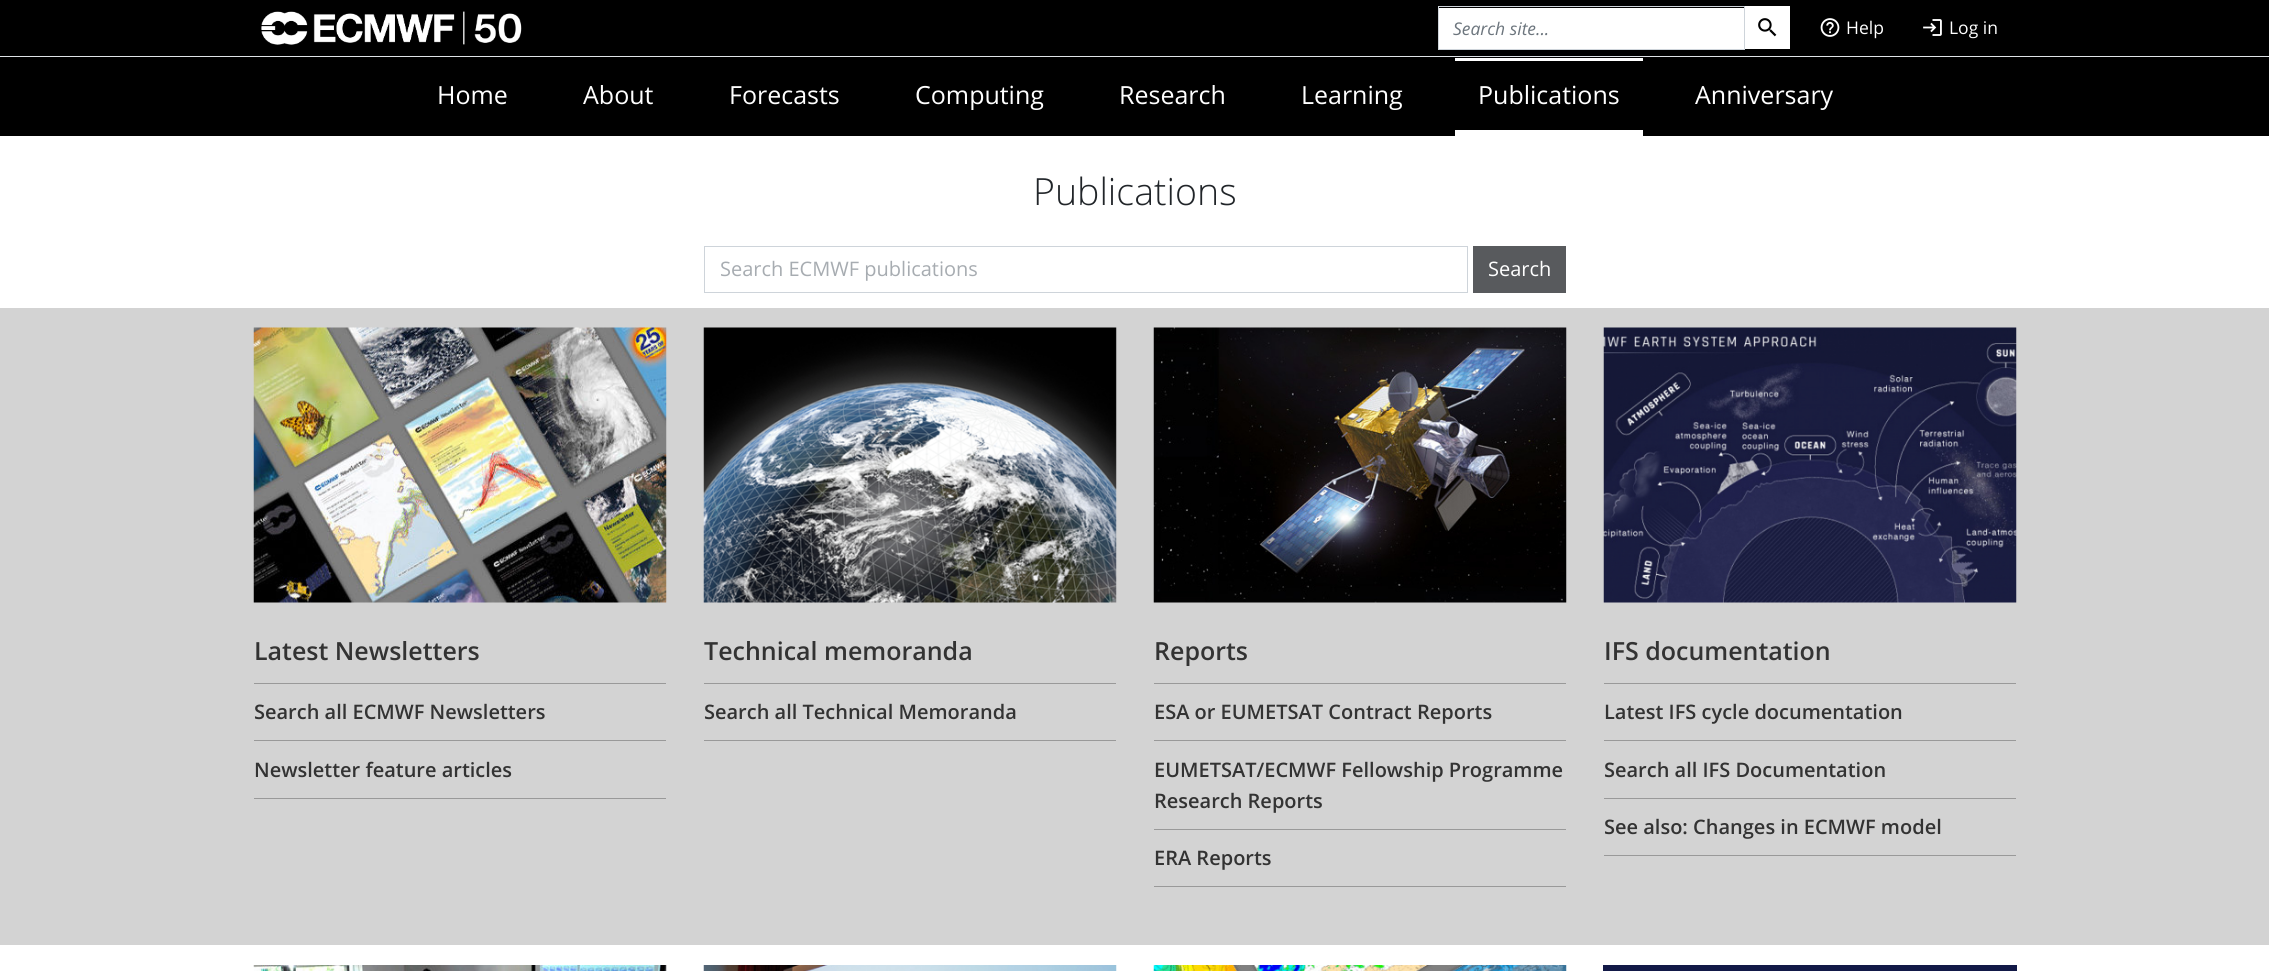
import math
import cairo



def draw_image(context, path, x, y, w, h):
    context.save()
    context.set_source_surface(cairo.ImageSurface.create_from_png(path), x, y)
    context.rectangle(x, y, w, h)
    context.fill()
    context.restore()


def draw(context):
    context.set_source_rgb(1, 1, 1)
    context.paint()
    context.set_source_rgb(0, 0, 0)
    context.rectangle(0, 0, 2269, 136)
    context.fill()
    context.set_source_rgb(222 / 255, 226 / 255, 230 / 255)
    context.rectangle(0, 56, 2269, 1)
    context.fill()
    draw_image(context, "images/1.png", 261, 11, 261, 34)
    context.set_source_rgb(1, 1, 1)
    context.rectangle(1439, 8, 305, 41)
    context.fill()
    context.rectangle(1438.5, 6.5, 306, 43)
    context.set_source_rgb(206 / 255, 212 / 255, 218 / 255)
    context.set_line_width(1)
    context.stroke()
    context.set_source_rgb(1, 1, 1)
    context.rectangle(1745, 6, 45, 43)
    context.fill()
    draw_image(context, "images/2.png", 1758, 18, 19, 19)
    draw_image(context, "images/3.png", 1820, 18, 20, 19)
    draw_image(context, "images/4.png", 1923, 19, 19, 17)
    context.rectangle(1455, 58, 188, 3)
    context.fill()
    context.rectangle(1455, 130, 188, 6)
    context.fill()
    context.rectangle(704.5, 246.5, 763, 46)
    context.set_source_rgb(206 / 255, 212 / 255, 218 / 255)
    context.stroke()
    context.set_source_rgb(88 / 255, 90 / 255, 93 / 255)
    context.rectangle(1473, 246, 93, 47)
    context.fill()
    context.set_source_rgb(211 / 255, 211 / 255, 211 / 255)
    context.rectangle(0, 308, 2269, 637)
    context.fill()
    draw_image(context, "images/5.png", 253, 327, 414, 276)
    context.set_source_rgb(153 / 255, 153 / 255, 153 / 255)
    context.rectangle(254, 683, 412, 1)
    context.fill()
    context.rectangle(254, 740, 412, 1)
    context.fill()
    context.rectangle(254, 798, 412, 1)
    context.fill()
    draw_image(context, "images/6.png", 703, 327, 414, 276)
    context.rectangle(704, 683, 412, 1)
    context.fill()
    context.rectangle(704, 740, 412, 1)
    context.fill()
    draw_image(context, "images/7.png", 1153, 327, 414, 276)
    context.rectangle(1154, 683, 412, 1)
    context.fill()
    context.rectangle(1154, 740, 412, 1)
    context.fill()
    context.rectangle(1154, 829, 412, 1)
    context.fill()
    context.rectangle(1154, 886, 412, 1)
    context.fill()
    draw_image(context, "images/8.png", 1603, 327, 414, 276)
    context.rectangle(1604, 683, 412, 1)
    context.fill()
    context.rectangle(1604, 740, 412, 1)
    context.fill()
    context.rectangle(1604, 798, 412, 1)
    context.fill()
    context.rectangle(1604, 855, 412, 1)
    context.fill()
    draw_image(context, "images/9.png", 253, 965, 414, 6)
    draw_image(context, "images/10.png", 703, 965, 414, 6)
    draw_image(context, "images/11.png", 1153, 965, 414, 6)
    context.set_source_rgb(18 / 255, 25 / 255, 71 / 255)
    context.rectangle(1603, 965, 414, 6)
    context.fill()
    context.select_font_face("Open Sans", cairo.FontSlant.ITALIC)
    context.set_font_size(17.5)
    context.set_source_rgb(108 / 255, 117 / 255, 125 / 255)
    context.move_to(1453, 35)
    context.show_text("Search site...")
    context.select_font_face("Open Sans")
    context.set_source_rgb(1, 1, 1)
    context.move_to(1846, 34)
    context.show_text("Help")
    context.move_to(1949, 34)
    context.show_text("Log in")
    context.set_font_size(25)
    context.move_to(437, 104)
    context.show_text("Home")
    context.move_to(583, 104)
    context.show_text("About")
    context.move_to(729, 104)
    context.show_text("Forecasts")
    context.move_to(915, 104)
    context.show_text("Computing")
    context.move_to(1119, 104)
    context.show_text("Research")
    context.move_to(1301, 104)
    context.show_text("Learning")
    context.move_to(1478, 104)
    context.show_text("Publications")
    context.move_to(1695, 104)
    context.show_text("Anniversary")
    context.select_font_face("Open Sans Light")
    context.set_font_size(37.5)
    context.set_source_rgb(33 / 255, 37 / 255, 41 / 255)
    context.move_to(1033, 205)
    context.show_text("Publications")
    context.select_font_face("Open Sans")
    context.set_font_size(20)
    context.set_source_rgb(167 / 255, 172 / 255, 177 / 255)
    context.move_to(720, 276)
    context.show_text("Search ECMWF publications")
    context.set_source_rgb(1, 1, 1)
    context.move_to(1488, 276)
    context.show_text("Search")
    context.select_font_face("Open Sans SemiBold")
    context.set_font_size(25)
    context.set_source_rgb(51 / 255, 51 / 255, 51 / 255)
    context.move_to(254, 660)
    context.show_text("Latest Newsletters")
    context.set_font_size(20)
    context.move_to(254, 719)
    context.show_text("Search all ECMWF Newsletters")
    context.move_to(254, 777)
    context.show_text("Newsletter feature articles")
    context.set_font_size(25)
    context.move_to(704, 660)
    context.show_text("Technical memoranda")
    context.set_font_size(20)
    context.move_to(704, 719)
    context.show_text("Search all Technical Memoranda")
    context.set_font_size(25)
    context.move_to(1154, 660)
    context.show_text("Reports")
    context.set_font_size(20)
    context.move_to(1154, 719)
    context.show_text("ESA or EUMETSAT Contract Reports")
    context.move_to(1154, 777)
    context.show_text("EUMETSAT/ECMWF Fellowship Programme")
    context.move_to(1154, 808)
    context.show_text("Research Reports")
    context.move_to(1154, 865)
    context.show_text("ERA Reports")
    context.set_font_size(25)
    context.move_to(1604, 660)
    context.show_text("IFS documentation")
    context.set_font_size(20)
    context.move_to(1604, 719)
    context.show_text("Latest IFS cycle documentation")
    context.move_to(1604, 777)
    context.show_text("Search all IFS Documentation")
    context.move_to(1604, 834)
    context.show_text("See also: Changes in ECMWF model")


surface = cairo.ImageSurface(cairo.Format.RGB24, 2269, 971)
context = cairo.Context(surface)
options = cairo.FontOptions()
options.set_hint_metrics(cairo.HintMetrics.OFF)
options.set_hint_style(cairo.HintStyle.NONE)
context.set_font_options(options)
context.set_miter_limit(4)
draw(context)
surface.write_to_png("out.png")
